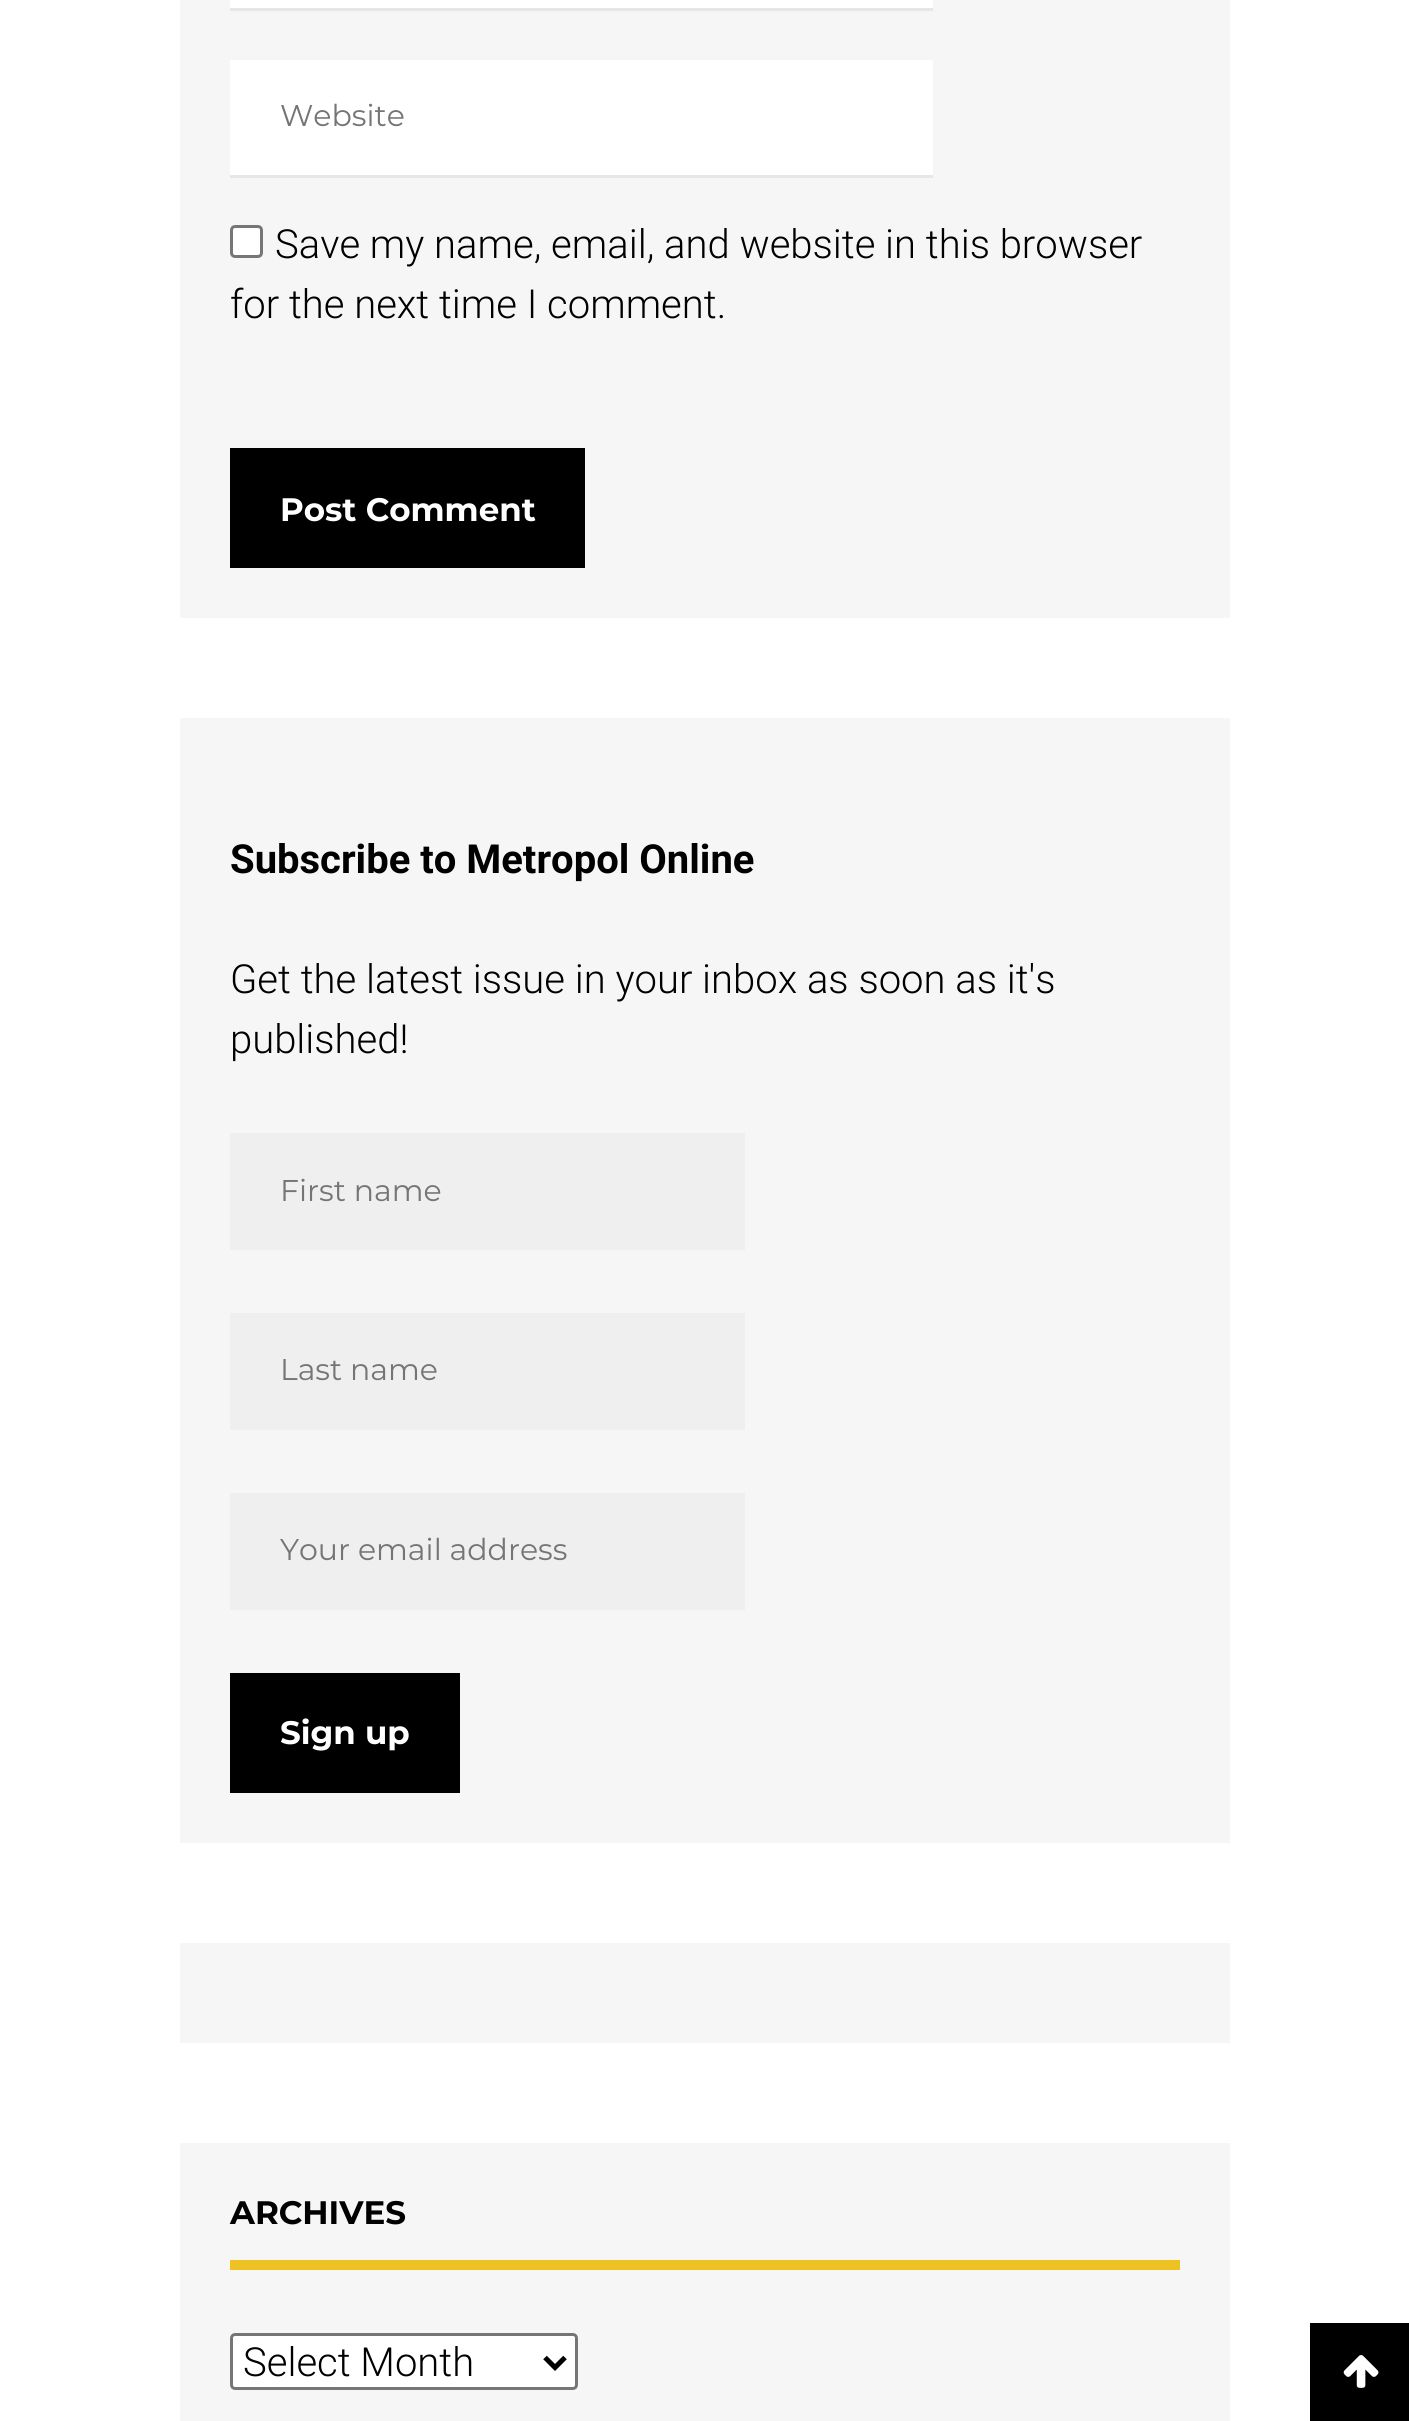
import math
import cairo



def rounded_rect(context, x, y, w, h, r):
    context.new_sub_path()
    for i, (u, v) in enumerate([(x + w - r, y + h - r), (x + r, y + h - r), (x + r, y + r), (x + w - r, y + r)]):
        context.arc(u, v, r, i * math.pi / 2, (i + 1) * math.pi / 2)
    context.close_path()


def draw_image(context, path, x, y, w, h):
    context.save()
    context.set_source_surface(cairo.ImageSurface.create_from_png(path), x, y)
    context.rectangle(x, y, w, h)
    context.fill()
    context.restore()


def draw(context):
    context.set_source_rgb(1, 1, 1)
    context.paint()
    context.set_source_rgb(246 / 255, 246 / 255, 246 / 255)
    context.rectangle(180, 0, 1050, 618)
    context.fill()
    context.set_source_rgb(1, 1, 1)
    context.rectangle(230, 0, 703, 8)
    context.fill()
    context.set_source_rgb(230 / 255, 230 / 255, 230 / 255)
    context.rectangle(230, 8, 703, 3)
    context.fill()
    context.set_source_rgb(1, 1, 1)
    context.rectangle(230, 60, 703, 115)
    context.fill()
    context.set_source_rgb(230 / 255, 230 / 255, 230 / 255)
    context.rectangle(230, 175, 703, 3)
    context.fill()
    context.set_source_rgb(1, 1, 1)
    rounded_rect(context, 231.5, 226.5, 30, 30, 3.5)
    context.fill_preserve()
    context.set_source_rgb(118 / 255, 118 / 255, 118 / 255)
    context.set_line_width(3)
    context.stroke()
    context.set_source_rgb(0, 0, 0)
    context.rectangle(230, 448, 355, 120)
    context.fill()
    context.set_source_rgb(246 / 255, 246 / 255, 246 / 255)
    context.rectangle(180, 718, 1050, 1125)
    context.fill()
    context.set_source_rgb(239 / 255, 239 / 255, 239 / 255)
    context.rectangle(230, 1133, 515, 117)
    context.fill()
    context.rectangle(230, 1313, 515, 117)
    context.fill()
    context.rectangle(230, 1493, 515, 117)
    context.fill()
    context.set_source_rgb(0, 0, 0)
    context.rectangle(230, 1673, 230, 120)
    context.fill()
    context.set_source_rgb(246 / 255, 246 / 255, 246 / 255)
    context.rectangle(180, 1943, 1050, 100)
    context.fill()
    context.rectangle(180, 2143, 1050, 278)
    context.fill()
    context.set_source_rgb(238 / 255, 194 / 255, 35 / 255)
    context.rectangle(230, 2260, 950, 10)
    context.fill()
    context.set_source_rgb(1, 1, 1)
    rounded_rect(context, 231.5, 2334.5, 345, 54, 3.5)
    context.fill_preserve()
    context.set_source_rgb(118 / 255, 118 / 255, 118 / 255)
    context.stroke()
    context.new_path()
    context.move_to(545, 2357.5)
    context.line_to(555, 2367.5)
    context.line_to(565, 2357.5)
    context.set_source_rgb(0, 0, 0)
    context.set_line_width(5)
    context.stroke()
    context.rectangle(1310, 2323, 99, 98)
    context.fill()
    draw_image(context, "images/1.png", 1343, 2355, 36, 33)
    context.select_font_face("Montserrat")
    context.set_font_size(30)
    context.set_source_rgb(117 / 255, 117 / 255, 117 / 255)
    context.move_to(280, 126)
    context.show_text("Website")
    context.select_font_face("Roboto Light")
    context.set_font_size(40)
    context.set_source_rgb(0, 0, 0)
    context.move_to(275, 258)
    context.show_text("Save my name, email, and website in this browser")
    context.move_to(230, 318)
    context.show_text("for the next time I comment.")
    context.select_font_face("Montserrat", cairo.FontSlant.NORMAL, cairo.FontWeight.BOLD)
    context.set_font_size(32.5)
    context.set_source_rgb(1, 1, 1)
    context.move_to(280, 521)
    context.show_text("Post Comment")
    context.select_font_face("Roboto", cairo.FontSlant.NORMAL, cairo.FontWeight.BOLD)
    context.set_font_size(40)
    context.set_source_rgb(0, 0, 0)
    context.move_to(230, 873)
    context.show_text("Subscribe to Metropol Online")
    context.select_font_face("Roboto Light")
    context.move_to(230, 993)
    context.show_text("Get the latest issue in your inbox as soon as it's")
    context.move_to(230, 1053)
    context.show_text("published!")
    context.select_font_face("Montserrat")
    context.set_font_size(30)
    context.set_source_rgb(117 / 255, 117 / 255, 117 / 255)
    context.move_to(280, 1201)
    context.show_text("First name")
    context.move_to(280, 1380)
    context.show_text("Last name")
    context.move_to(280, 1560)
    context.show_text("Your email address")
    context.select_font_face("Montserrat", cairo.FontSlant.NORMAL, cairo.FontWeight.BOLD)
    context.set_font_size(32.5)
    context.set_source_rgb(1, 1, 1)
    context.move_to(280, 1744)
    context.show_text("Sign up")
    context.set_source_rgb(0, 0, 0)
    context.move_to(230, 2224)
    context.show_text("ARCHIVES")
    context.select_font_face("Roboto Light")
    context.set_font_size(40)
    context.move_to(243, 2376)
    context.show_text("Select Month")


surface = cairo.ImageSurface(cairo.Format.RGB24, 1409, 2421)
context = cairo.Context(surface)
options = cairo.FontOptions()
options.set_hint_metrics(cairo.HintMetrics.OFF)
options.set_hint_style(cairo.HintStyle.NONE)
context.set_font_options(options)
context.set_miter_limit(4)
draw(context)
surface.write_to_png("out.png")
